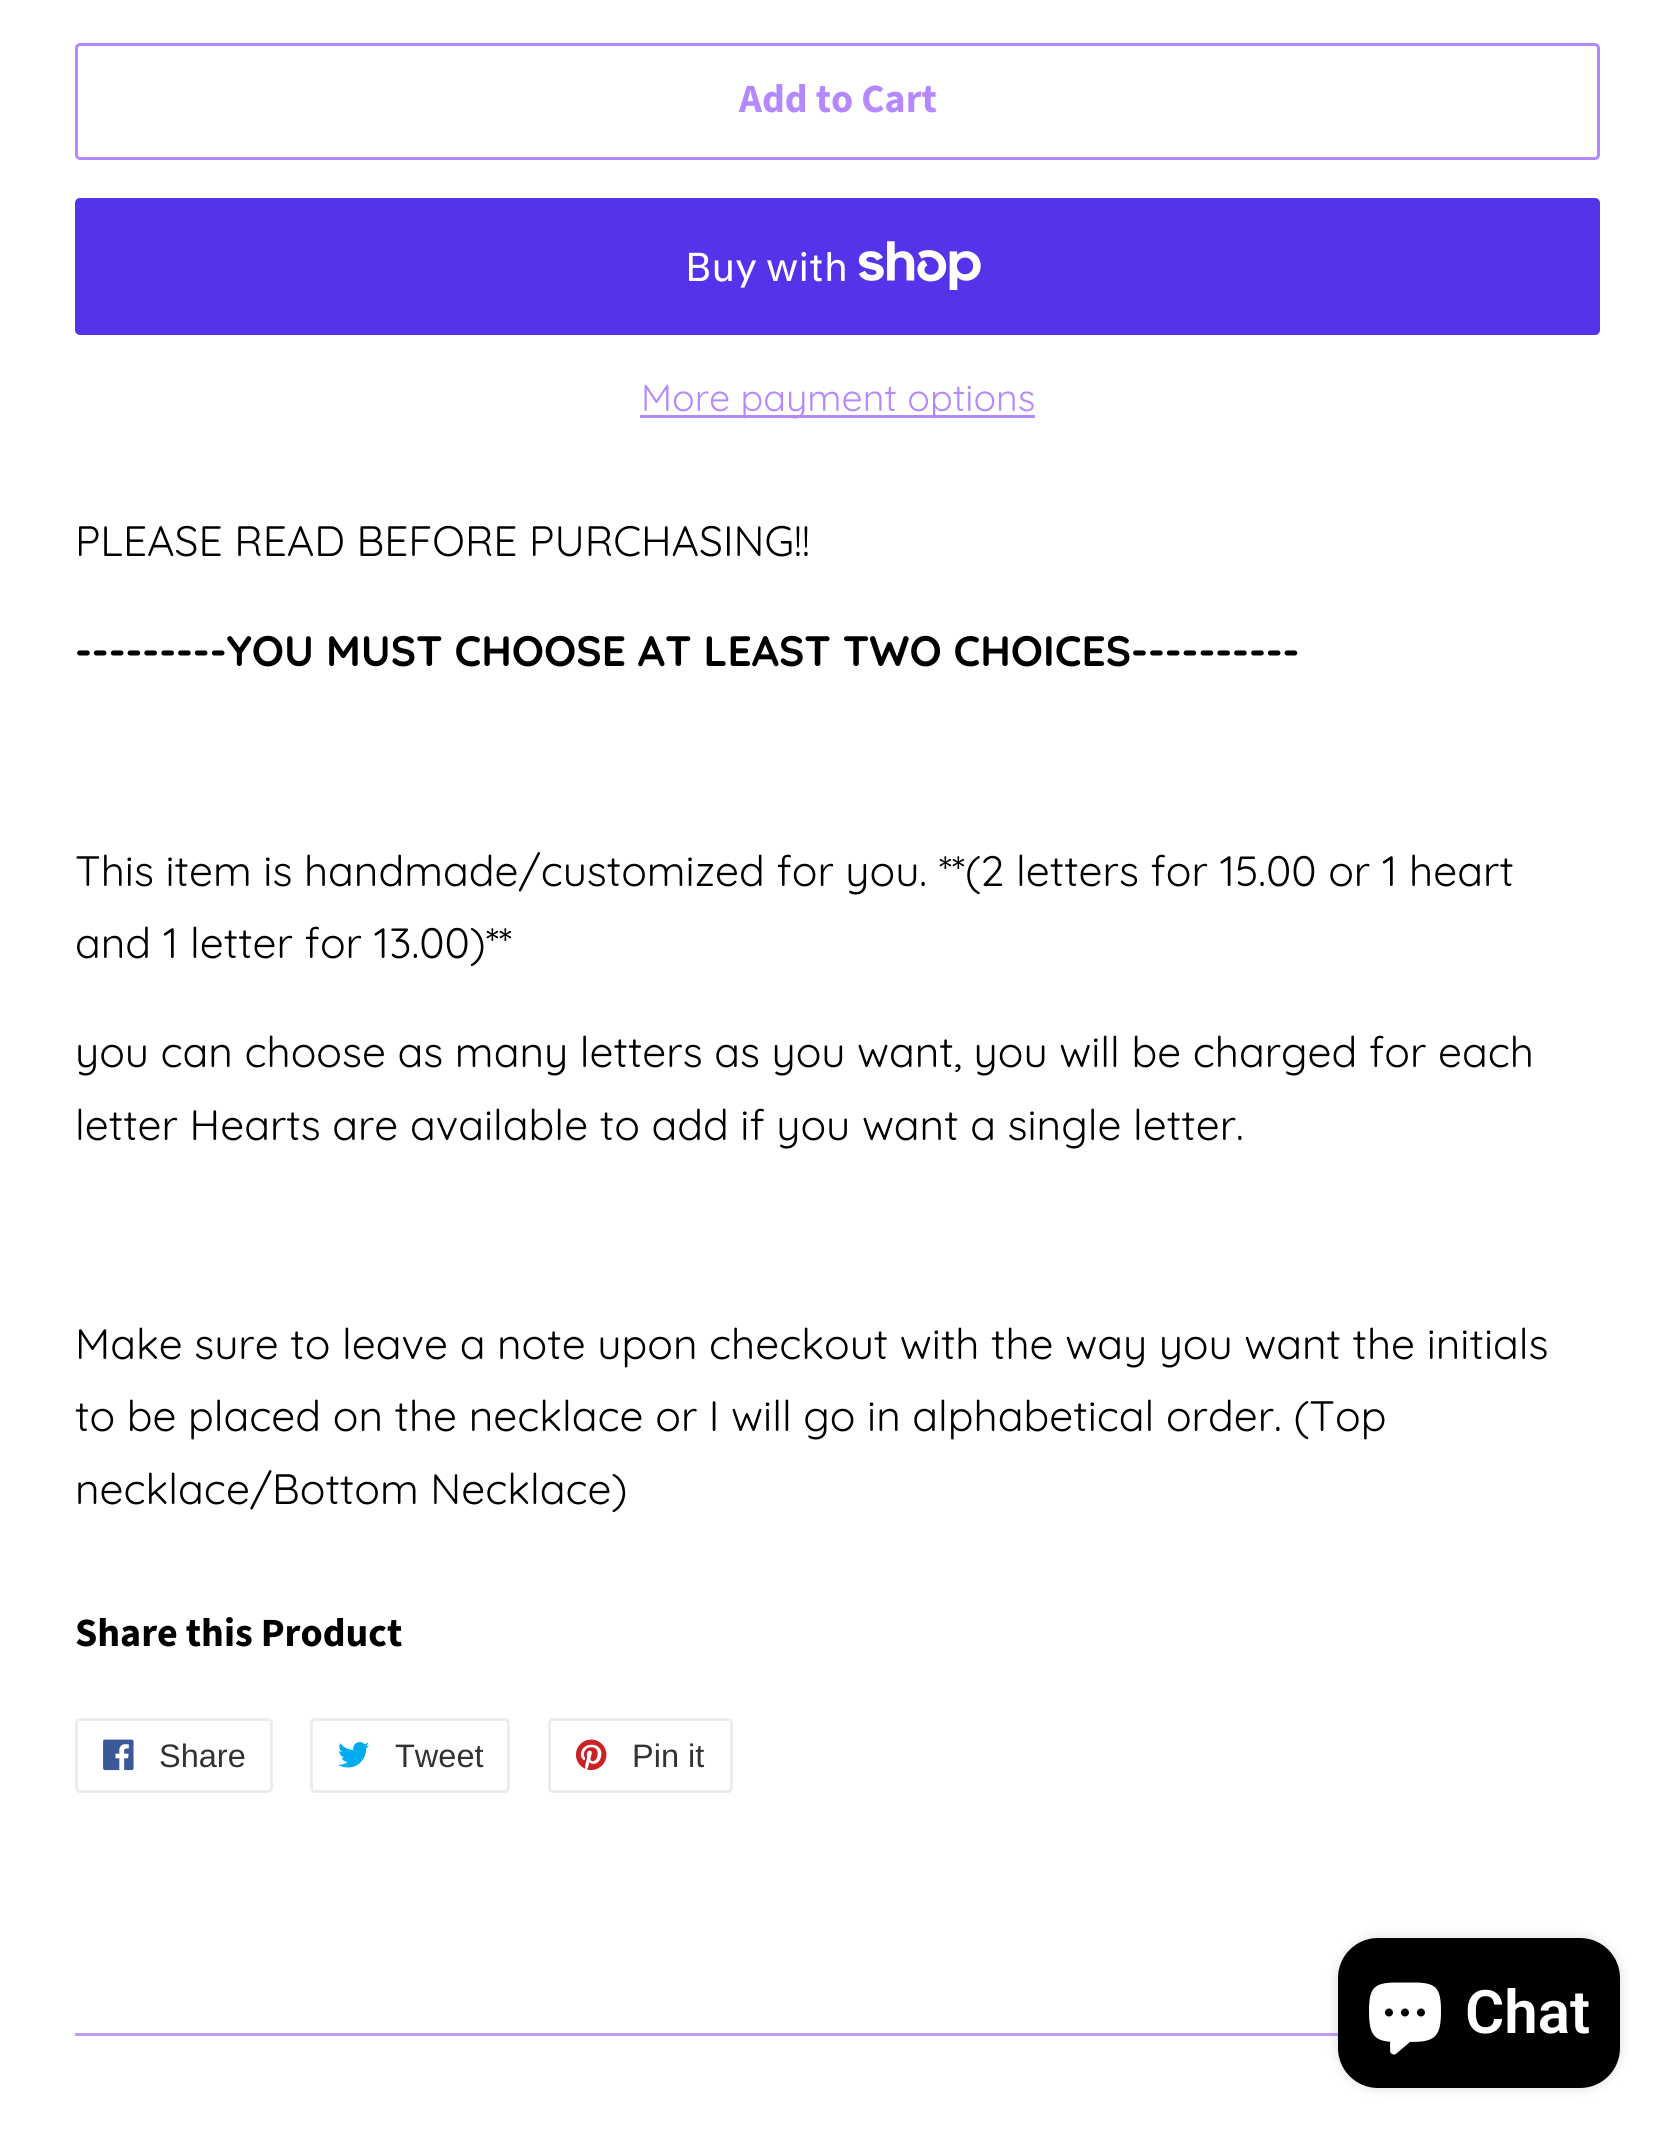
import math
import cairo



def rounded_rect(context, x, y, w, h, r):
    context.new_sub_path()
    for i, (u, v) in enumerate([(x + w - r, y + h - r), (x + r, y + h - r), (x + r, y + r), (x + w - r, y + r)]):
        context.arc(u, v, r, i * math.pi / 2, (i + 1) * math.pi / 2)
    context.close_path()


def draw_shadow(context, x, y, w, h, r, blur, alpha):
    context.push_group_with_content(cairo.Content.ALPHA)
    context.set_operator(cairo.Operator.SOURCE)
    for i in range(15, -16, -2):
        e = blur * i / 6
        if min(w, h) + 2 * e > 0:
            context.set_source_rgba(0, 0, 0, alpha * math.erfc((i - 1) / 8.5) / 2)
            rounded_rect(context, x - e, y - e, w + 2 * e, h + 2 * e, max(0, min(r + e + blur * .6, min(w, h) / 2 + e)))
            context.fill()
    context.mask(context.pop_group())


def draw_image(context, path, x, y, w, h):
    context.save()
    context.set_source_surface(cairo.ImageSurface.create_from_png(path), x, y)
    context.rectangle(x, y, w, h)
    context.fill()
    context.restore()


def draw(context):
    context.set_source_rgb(1, 1, 1)
    context.paint()
    rounded_rect(context, 76.5, 44.5, 1522, 114, 3.5)
    context.set_source_rgb(180 / 255, 137 / 255, 1)
    context.set_line_width(3)
    context.stroke()
    context.set_source_rgb(84 / 255, 51 / 255, 235 / 255)
    rounded_rect(context, 75, 198, 1525, 137, 5)
    context.fill()
    draw_image(context, "images/1.png", 858, 241, 123, 49)
    context.set_source_rgb(180 / 255, 137 / 255, 1)
    context.rectangle(640, 415, 395, 3)
    context.fill()
    rounded_rect(context, 76.5, 1719.5, 195, 72, 3.5)
    context.set_source_rgb(236 / 255, 236 / 255, 236 / 255)
    context.stroke()
    draw_image(context, "images/2.png", 103, 1739, 31, 32)
    rounded_rect(context, 311.5, 1719.5, 197, 72, 3.5)
    context.stroke()
    draw_image(context, "images/3.png", 338, 1742, 32, 26)
    rounded_rect(context, 549.5, 1719.5, 182, 72, 3.5)
    context.stroke()
    draw_image(context, "images/4.png", 576, 1739, 31, 31)
    context.set_source_rgb(191 / 255, 155 / 255, 1)
    context.rectangle(75, 2033, 1263, 3)
    context.fill()
    context.set_source_rgb(0, 0, 0)
    draw_shadow(context, 1338, 1938, 282, 150, 40, 6, 0.15)
    context.set_source_rgb(0, 0, 0)
    rounded_rect(context, 1338, 1938, 282, 150, 40)
    context.fill()
    draw_image(context, "images/5.png", 1369, 1982, 72, 73)
    context.select_font_face("Source Sans Pro", cairo.FontSlant.NORMAL, cairo.FontWeight.BOLD)
    context.set_font_size(40)
    context.set_source_rgb(180 / 255, 137 / 255, 1)
    context.move_to(739, 112)
    context.show_text("Add to Cart")
    context.select_font_face("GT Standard")
    context.set_source_rgb(1, 1, 1)
    context.move_to(685, 281)
    context.show_text("Buy with")
    context.select_font_face("Quicksand")
    context.set_font_size(37.5)
    context.set_source_rgb(180 / 255, 137 / 255, 1)
    context.move_to(641, 411)
    context.show_text("More payment options")
    context.set_font_size(42.5)
    context.set_source_rgb(0, 0, 0)
    context.move_to(75, 556)
    context.show_text("PLEASE READ BEFORE PURCHASING!!")
    context.select_font_face("Quicksand", cairo.FontSlant.NORMAL, cairo.FontWeight.BOLD)
    context.move_to(75, 666)
    context.show_text("---------YOU MUST CHOOSE AT LEAST TWO CHOICES----------")
    context.select_font_face("Quicksand")
    context.move_to(75, 886)
    context.show_text("This item is handmade/customized for you. **(2 letters for 15.00 or 1 heart")
    context.move_to(75, 958)
    context.show_text("and 1 letter for 13.00)**")
    context.move_to(75, 1067)
    context.show_text("you can choose as many letters as you want, you will be charged for each")
    context.move_to(75, 1140)
    context.show_text("letter Hearts are available to add if you want a single letter.")
    context.move_to(75, 1359)
    context.show_text("Make sure to leave a note upon checkout with the way you want the initials")
    context.move_to(75, 1431)
    context.show_text("to be placed on the necklace or I will go in alphabetical order. (Top")
    context.move_to(75, 1504)
    context.show_text("necklace/Bottom Necklace)")
    context.select_font_face("Source Sans Pro", cairo.FontSlant.NORMAL, cairo.FontWeight.BOLD)
    context.set_font_size(40)
    context.move_to(75, 1646)
    context.show_text("Share this Product")
    context.select_font_face("Liberation Sans")
    context.set_font_size(32.5)
    context.set_source_rgb(51 / 255, 51 / 255, 51 / 255)
    context.move_to(159, 1767)
    context.show_text("Share")
    context.move_to(395, 1767)
    context.show_text("Tweet")
    context.move_to(632, 1767)
    context.show_text("Pin it")
    context.select_font_face("Roboto SemiBold")
    context.set_font_size(60)
    context.set_source_rgb(1, 1, 1)
    context.move_to(1465, 2033)
    context.show_text("Chat")


surface = cairo.ImageSurface(cairo.Format.RGB24, 1675, 2140)
context = cairo.Context(surface)
options = cairo.FontOptions()
options.set_hint_metrics(cairo.HintMetrics.OFF)
options.set_hint_style(cairo.HintStyle.NONE)
context.set_font_options(options)
context.set_miter_limit(4)
draw(context)
surface.write_to_png("out.png")
